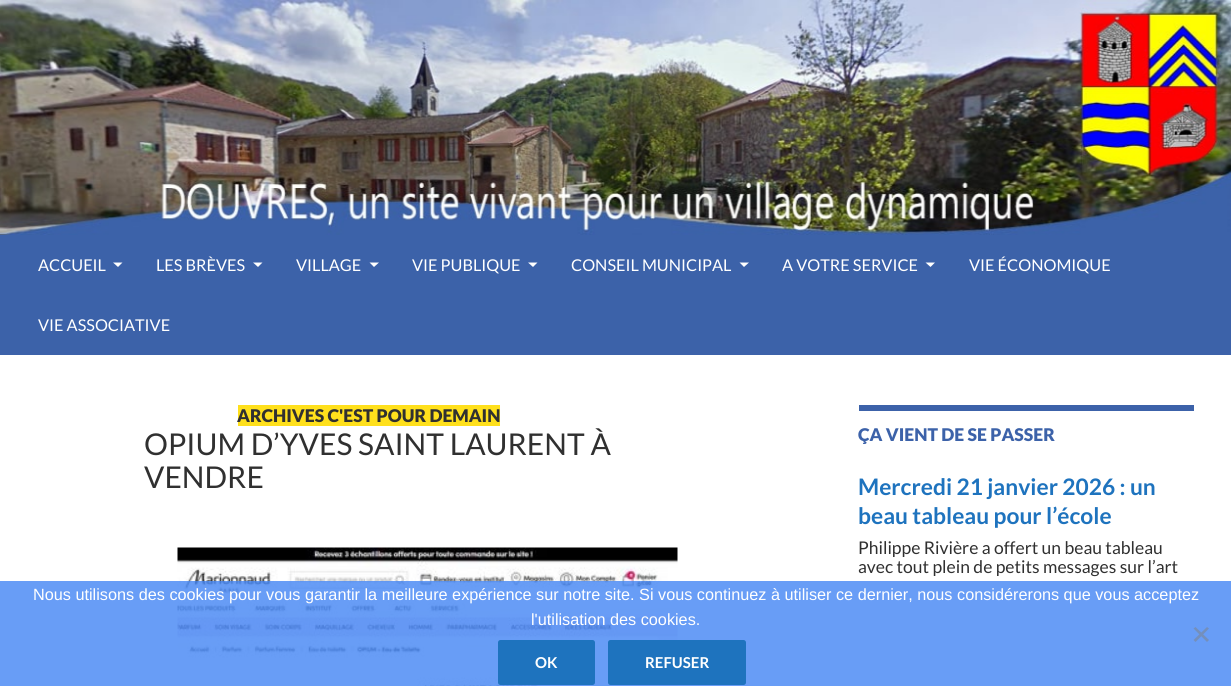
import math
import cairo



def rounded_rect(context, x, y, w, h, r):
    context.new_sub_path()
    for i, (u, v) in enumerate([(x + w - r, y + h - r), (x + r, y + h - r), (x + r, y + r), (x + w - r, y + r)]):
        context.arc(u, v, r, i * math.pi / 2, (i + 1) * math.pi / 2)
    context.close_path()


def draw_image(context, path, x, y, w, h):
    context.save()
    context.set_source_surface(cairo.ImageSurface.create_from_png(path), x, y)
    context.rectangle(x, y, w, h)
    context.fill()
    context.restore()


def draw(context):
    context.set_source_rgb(1, 1, 1)
    context.paint()
    draw_image(context, "images/1.png", 0, 0, 1231, 235)
    context.set_source_rgb(60 / 255, 98 / 255, 169 / 255)
    context.rectangle(0, 235, 1231, 120)
    context.fill()
    context.set_source_rgb(1, 1, 1)
    context.new_path()
    context.move_to(113, 262.5)
    context.line_to(122.5, 262.5)
    context.line_to(118, 267)
    context.close_path()
    context.fill()
    context.new_path()
    context.move_to(253, 262.5)
    context.line_to(262.5, 262.5)
    context.line_to(258, 267)
    context.close_path()
    context.fill()
    context.new_path()
    context.move_to(369.5, 262.5)
    context.line_to(379, 262.5)
    context.line_to(374, 267)
    context.close_path()
    context.fill()
    context.new_path()
    context.move_to(528, 262.5)
    context.line_to(537.5, 262.5)
    context.line_to(533, 267)
    context.close_path()
    context.fill()
    context.new_path()
    context.move_to(739.5, 262.5)
    context.line_to(749, 262.5)
    context.line_to(744, 267)
    context.close_path()
    context.fill()
    context.new_path()
    context.move_to(925.5, 262.5)
    context.line_to(935, 262.5)
    context.line_to(930.5, 267)
    context.close_path()
    context.fill()
    context.set_source_rgb(1, 224 / 255, 28 / 255)
    context.rectangle(238, 405, 262, 21)
    context.fill()
    draw_image(context, "images/2.png", 177, 547, 501, 139)
    context.set_source_rgb(60 / 255, 98 / 255, 169 / 255)
    context.rectangle(859, 405, 335, 6)
    context.fill()
    context.set_source_rgba(66 / 255, 133 / 255, 244 / 255, 0.8)
    context.rectangle(0, 581, 1231, 105)
    context.fill()
    context.set_source_rgb(116 / 255, 143 / 255, 187 / 255)
    context.new_path()
    context.move_to(1207, 627)
    context.line_to(1209, 628.5)
    context.line_to(1195.5, 642)
    context.line_to(1193.5, 640)
    context.close_path()
    context.fill()
    context.new_path()
    context.move_to(1193.5, 628.5)
    context.line_to(1195.5, 627)
    context.line_to(1209, 640)
    context.line_to(1207, 642)
    context.close_path()
    context.fill()
    context.set_source_rgb(30 / 255, 115 / 255, 190 / 255)
    rounded_rect(context, 498, 640, 97, 45, 2.5)
    context.fill()
    rounded_rect(context, 608, 640, 138, 45, 2.5)
    context.fill()
    context.select_font_face("Lato")
    context.set_font_size(16.25)
    context.set_source_rgb(1, 1, 1)
    context.move_to(38, 271)
    context.show_text("ACCUEIL")
    context.move_to(156, 271)
    context.show_text("LES BRÈVES")
    context.move_to(296, 271)
    context.show_text("VILLAGE")
    context.move_to(412, 271)
    context.show_text("VIE PUBLIQUE")
    context.move_to(571, 271)
    context.show_text("CONSEIL MUNICIPAL")
    context.move_to(782, 271)
    context.show_text("A VOTRE SERVICE")
    context.move_to(969, 271)
    context.show_text("VIE ÉCONOMIQUE")
    context.move_to(38, 331)
    context.show_text("VIE ASSOCIATIVE")
    context.select_font_face("Lato Black")
    context.set_font_size(17.5)
    context.set_source_rgb(48 / 255, 48 / 255, 48 / 255)
    context.move_to(237, 422)
    context.show_text("ARCHIVES C'EST POUR DEMAIN")
    context.select_font_face("Lato")
    context.set_font_size(30)
    context.move_to(144, 455)
    context.show_text("OPIUM D’YVES SAINT LAURENT À")
    context.move_to(144, 488)
    context.show_text("VENDRE")
    context.select_font_face("Lato Black")
    context.set_font_size(17.5)
    context.set_source_rgb(60 / 255, 98 / 255, 169 / 255)
    context.move_to(858, 441)
    context.show_text("ÇA VIENT DE SE PASSER")
    context.select_font_face("Lato", cairo.FontSlant.NORMAL, cairo.FontWeight.BOLD)
    context.set_font_size(22.75)
    context.set_source_rgb(30 / 255, 115 / 255, 190 / 255)
    context.move_to(858, 495)
    context.show_text("Mercredi 21 janvier 2026 : un")
    context.move_to(858, 524)
    context.show_text("beau tableau pour l’école")
    context.select_font_face("Lato")
    context.set_font_size(17.5)
    context.set_source_rgb(48 / 255, 48 / 255, 48 / 255)
    context.move_to(858, 554)
    context.show_text("Philippe Rivière a offert un beau tableau")
    context.move_to(858, 573)
    context.show_text("avec tout plein de petits messages sur l’art")
    context.select_font_face("Liberation Sans")
    context.set_font_size(16.25)
    context.set_source_rgb(1, 1, 1)
    context.move_to(33, 600)
    context.show_text("Nous utilisons des cookies pour vous garantir la meilleure expérience sur notre site. Si vous continuez à utiliser ce dernier, nous considérerons que vous acceptez")
    context.move_to(531, 625)
    context.show_text("l'utilisation des cookies.")
    context.select_font_face("Lato", cairo.FontSlant.NORMAL, cairo.FontWeight.BOLD)
    context.set_font_size(15)
    context.move_to(535, 668)
    context.show_text("OK")
    context.move_to(645, 668)
    context.show_text("REFUSER")


surface = cairo.ImageSurface(cairo.Format.RGB24, 1231, 686)
context = cairo.Context(surface)
options = cairo.FontOptions()
options.set_hint_metrics(cairo.HintMetrics.OFF)
options.set_hint_style(cairo.HintStyle.NONE)
context.set_font_options(options)
context.set_miter_limit(4)
draw(context)
surface.write_to_png("out.png")
